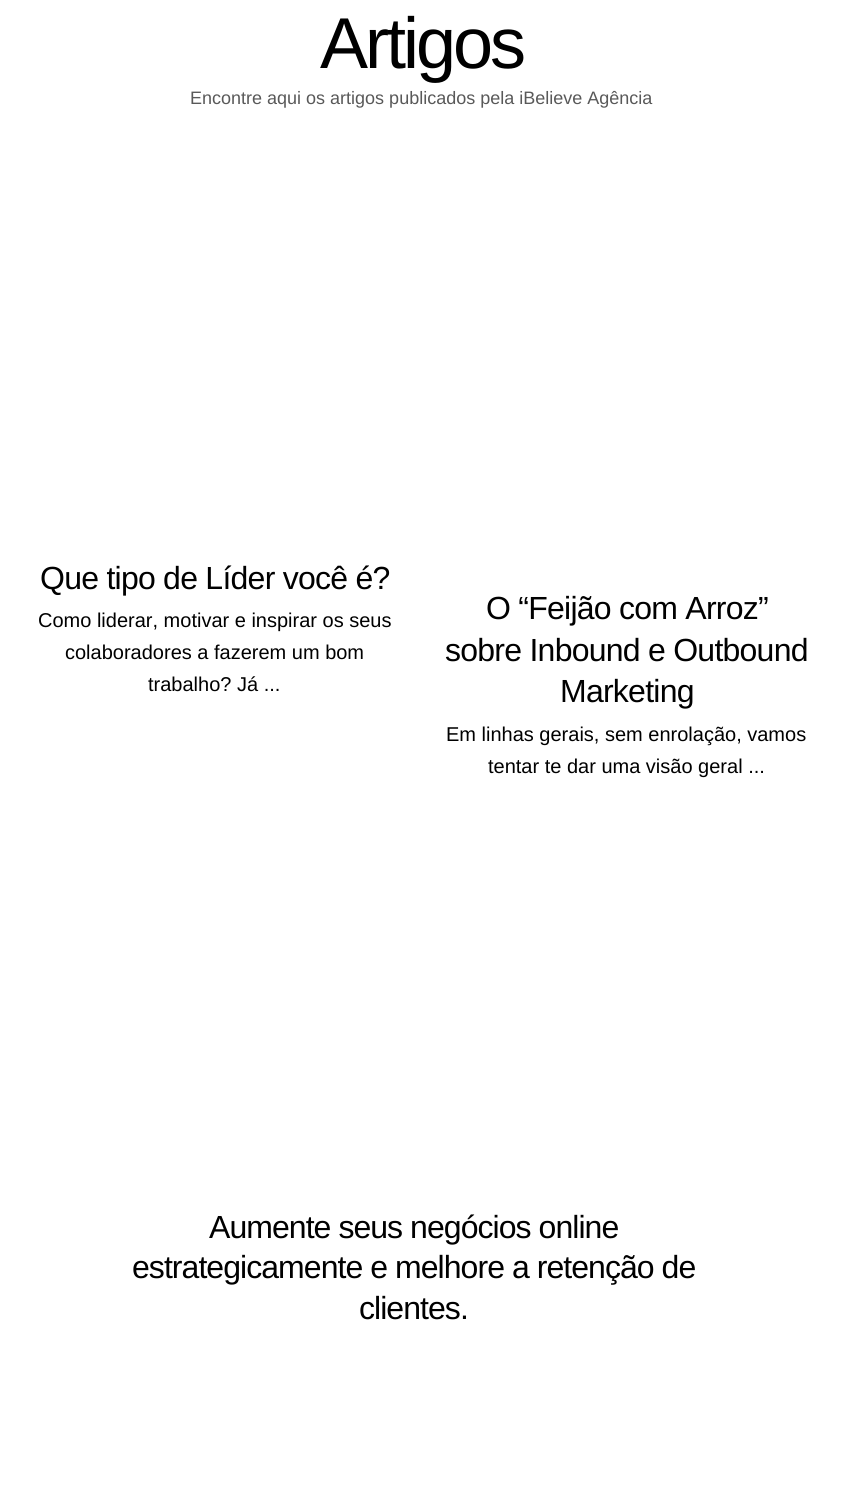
import math
import cairo



def draw_spaced(context, x, y, s, letter, word):
    context.move_to(x, y)
    for ch in s:
        context.show_text(ch)
        context.rel_move_to(letter + word * (ch == ' '), 0)


def draw(context):
    context.set_source_rgb(1, 1, 1)
    context.paint()
    context.select_font_face("Liberation Sans")
    context.set_font_size(72)
    context.set_source_rgb(0, 0, 0)
    draw_spaced(context, 320, 68, "Artigos", -3, 0)
    context.set_font_size(18)
    context.set_source_rgb(89 / 255, 89 / 255, 89 / 255)
    context.move_to(190, 104)
    context.show_text("Encontre aqui os artigos publicados pela iBelieve Agência")
    context.set_font_size(32)
    context.set_source_rgb(0, 0, 0)
    draw_spaced(context, 40, 589, "Que tipo de Líder você é?", -0.75, 0)
    context.set_font_size(20)
    context.move_to(38, 627)
    context.show_text("Como liderar, motivar e inspirar os seus")
    context.move_to(65, 659)
    context.show_text("colaboradores a fazerem um bom")
    context.move_to(148, 691)
    context.show_text("trabalho? Já ...")
    context.set_font_size(32)
    draw_spaced(context, 486, 619, "O “Feijão com Arroz”", -0.75, 0)
    draw_spaced(context, 445, 661, "sobre Inbound e Outbound", -0.75, 0)
    draw_spaced(context, 560, 702, "Marketing", -0.75, 0)
    context.set_font_size(20)
    context.move_to(446, 741)
    context.show_text("Em linhas gerais, sem enrolação, vamos")
    context.move_to(488, 773)
    context.show_text("tentar te dar uma visão geral ...")
    context.set_font_size(32)
    draw_spaced(context, 209, 1238, "Aumente seus negócios online", -0.95, 0)
    draw_spaced(context, 132, 1278, "estrategicamente e melhore a retenção de", -0.95, 0)
    draw_spaced(context, 359, 1319, "clientes.", -0.95, 0)


surface = cairo.ImageSurface(cairo.Format.RGB24, 842, 1509)
context = cairo.Context(surface)
options = cairo.FontOptions()
options.set_hint_metrics(cairo.HintMetrics.OFF)
options.set_hint_style(cairo.HintStyle.NONE)
context.set_font_options(options)
context.set_miter_limit(4)
draw(context)
surface.write_to_png("out.png")
